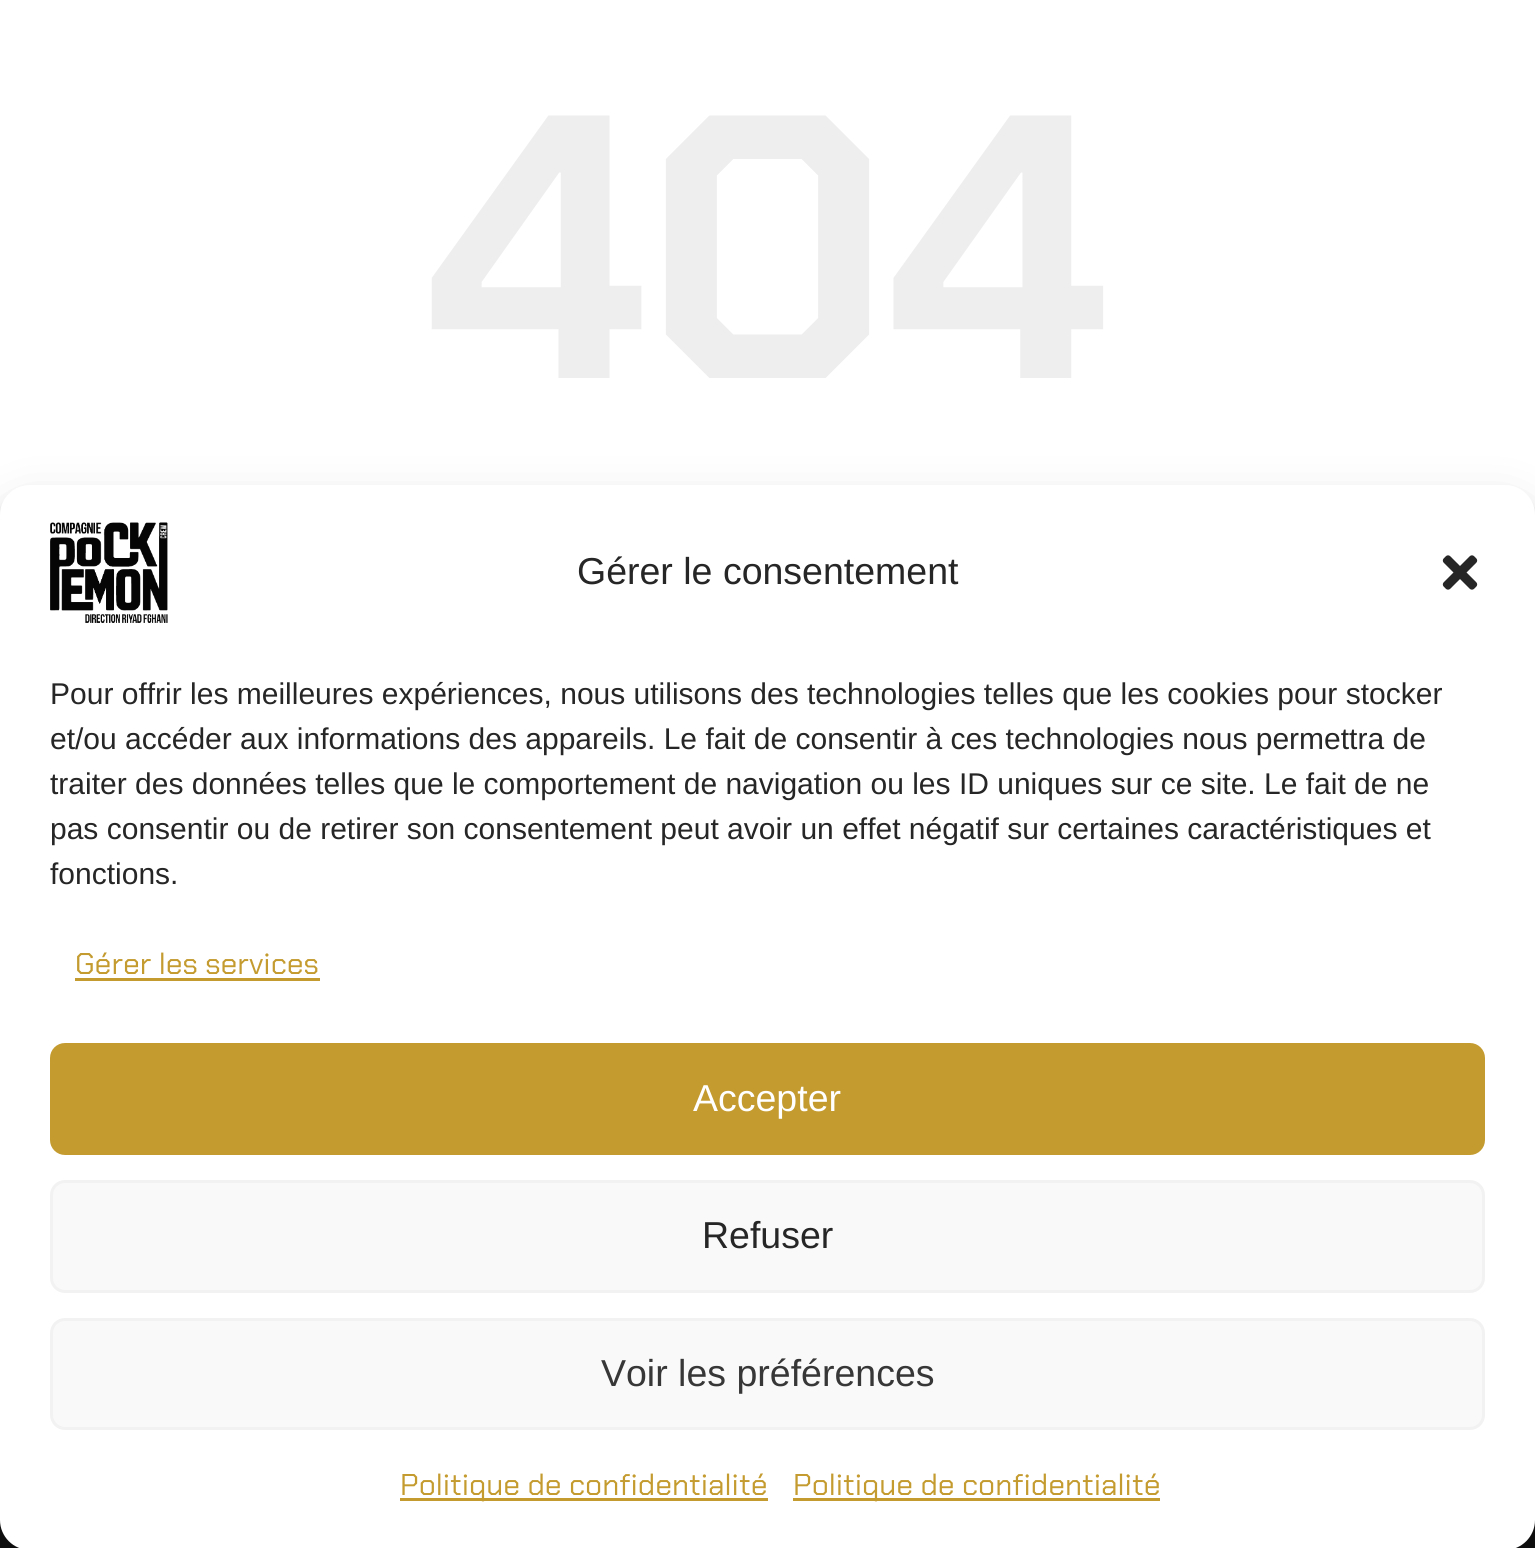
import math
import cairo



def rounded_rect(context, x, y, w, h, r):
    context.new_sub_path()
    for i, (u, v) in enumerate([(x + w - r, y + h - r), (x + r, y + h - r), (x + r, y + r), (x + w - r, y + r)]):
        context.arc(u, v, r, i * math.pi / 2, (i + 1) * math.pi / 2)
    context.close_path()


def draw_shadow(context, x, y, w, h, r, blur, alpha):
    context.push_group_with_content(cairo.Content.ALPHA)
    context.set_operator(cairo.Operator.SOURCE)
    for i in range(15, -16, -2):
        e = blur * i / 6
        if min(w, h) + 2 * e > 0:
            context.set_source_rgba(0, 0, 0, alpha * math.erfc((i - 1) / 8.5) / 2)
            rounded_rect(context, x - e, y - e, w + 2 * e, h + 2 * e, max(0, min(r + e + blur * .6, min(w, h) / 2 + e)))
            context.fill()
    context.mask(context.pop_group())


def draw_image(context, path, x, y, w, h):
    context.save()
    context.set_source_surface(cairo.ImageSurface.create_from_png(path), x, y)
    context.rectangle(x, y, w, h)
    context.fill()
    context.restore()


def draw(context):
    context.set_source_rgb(1, 1, 1)
    context.paint()
    context.set_source_rgb(17 / 255, 17 / 255, 17 / 255)
    context.rectangle(0, 1520, 1535, 28)
    context.fill()
    context.set_source_rgb(5 / 255, 5 / 255, 5 / 255)
    draw_shadow(context, 0, 500, 1535, 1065, 30, 7.5, 0.23)
    draw_shadow(context, 0, 510, 1535, 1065, 30, 25, 0.19)
    context.set_source_rgb(1, 1, 1)
    rounded_rect(context, 0, 485, 1535, 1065, 30)
    context.fill()
    draw_image(context, "images/1.png", 50, 522, 118, 101)
    draw_image(context, "images/2.png", 1442, 555, 36, 35)
    context.set_source_rgb(196 / 255, 155 / 255, 47 / 255)
    context.rectangle(75, 978, 245, 3)
    context.fill()
    rounded_rect(context, 51.5, 1044.5, 1432, 109, 13.5)
    context.fill_preserve()
    context.set_line_width(3)
    context.stroke()
    context.set_source_rgb(249 / 255, 249 / 255, 249 / 255)
    rounded_rect(context, 51.5, 1181.5, 1432, 110, 13.5)
    context.fill_preserve()
    context.set_source_rgb(242 / 255, 242 / 255, 242 / 255)
    context.stroke()
    context.set_source_rgb(249 / 255, 249 / 255, 249 / 255)
    rounded_rect(context, 51.5, 1319.5, 1432, 109, 13.5)
    context.fill_preserve()
    context.set_source_rgb(242 / 255, 242 / 255, 242 / 255)
    context.stroke()
    context.set_source_rgb(196 / 255, 155 / 255, 47 / 255)
    context.rectangle(400, 1498, 368, 3)
    context.fill()
    context.rectangle(793, 1498, 367, 3)
    context.fill()
    context.select_font_face("Chakra Petch", cairo.FontSlant.NORMAL, cairo.FontWeight.BOLD)
    context.set_font_size(375)
    context.set_source_rgb(238 / 255, 238 / 255, 238 / 255)
    context.move_to(428, 378)
    context.show_text("404")
    context.select_font_face("Liberation Sans")
    context.set_font_size(37.5)
    context.set_source_rgb(38 / 255, 38 / 255, 38 / 255)
    context.move_to(577, 584)
    context.show_text("Gérer le consentement")
    context.set_font_size(30)
    context.move_to(50, 704)
    context.show_text("Pour offrir les meilleures expériences, nous utilisons des technologies telles que les cookies pour stocker")
    context.move_to(50, 749)
    context.show_text("et/ou accéder aux informations des appareils. Le fait de consentir à ces technologies nous permettra de")
    context.move_to(50, 794)
    context.show_text("traiter des données telles que le comportement de navigation ou les ID uniques sur ce site. Le fait de ne")
    context.move_to(50, 839)
    context.show_text("pas consentir ou de retirer son consentement peut avoir un effet négatif sur certaines caractéristiques et")
    context.move_to(50, 884)
    context.show_text("fonctions.")
    context.select_font_face("Chakra Petch")
    context.set_source_rgb(196 / 255, 155 / 255, 47 / 255)
    context.move_to(75, 974)
    context.show_text("Gérer les services")
    context.select_font_face("Liberation Sans")
    context.set_font_size(37.5)
    context.set_source_rgb(1, 1, 1)
    context.move_to(693, 1111)
    context.show_text("Accepter")
    context.set_source_rgb(38 / 255, 38 / 255, 38 / 255)
    context.move_to(702, 1248)
    context.show_text("Refuser")
    context.set_source_rgb(55 / 255, 55 / 255, 55 / 255)
    context.move_to(601, 1386)
    context.show_text("Voir les préférences")
    context.select_font_face("Chakra Petch")
    context.set_font_size(30)
    context.set_source_rgb(196 / 255, 155 / 255, 47 / 255)
    context.move_to(400, 1495)
    context.show_text("Politique de confidentialité")
    context.move_to(793, 1495)
    context.show_text("Politique de confidentialité")


surface = cairo.ImageSurface(cairo.Format.RGB24, 1535, 1548)
context = cairo.Context(surface)
options = cairo.FontOptions()
options.set_hint_metrics(cairo.HintMetrics.OFF)
options.set_hint_style(cairo.HintStyle.NONE)
context.set_font_options(options)
context.set_miter_limit(4)
draw(context)
surface.write_to_png("out.png")
